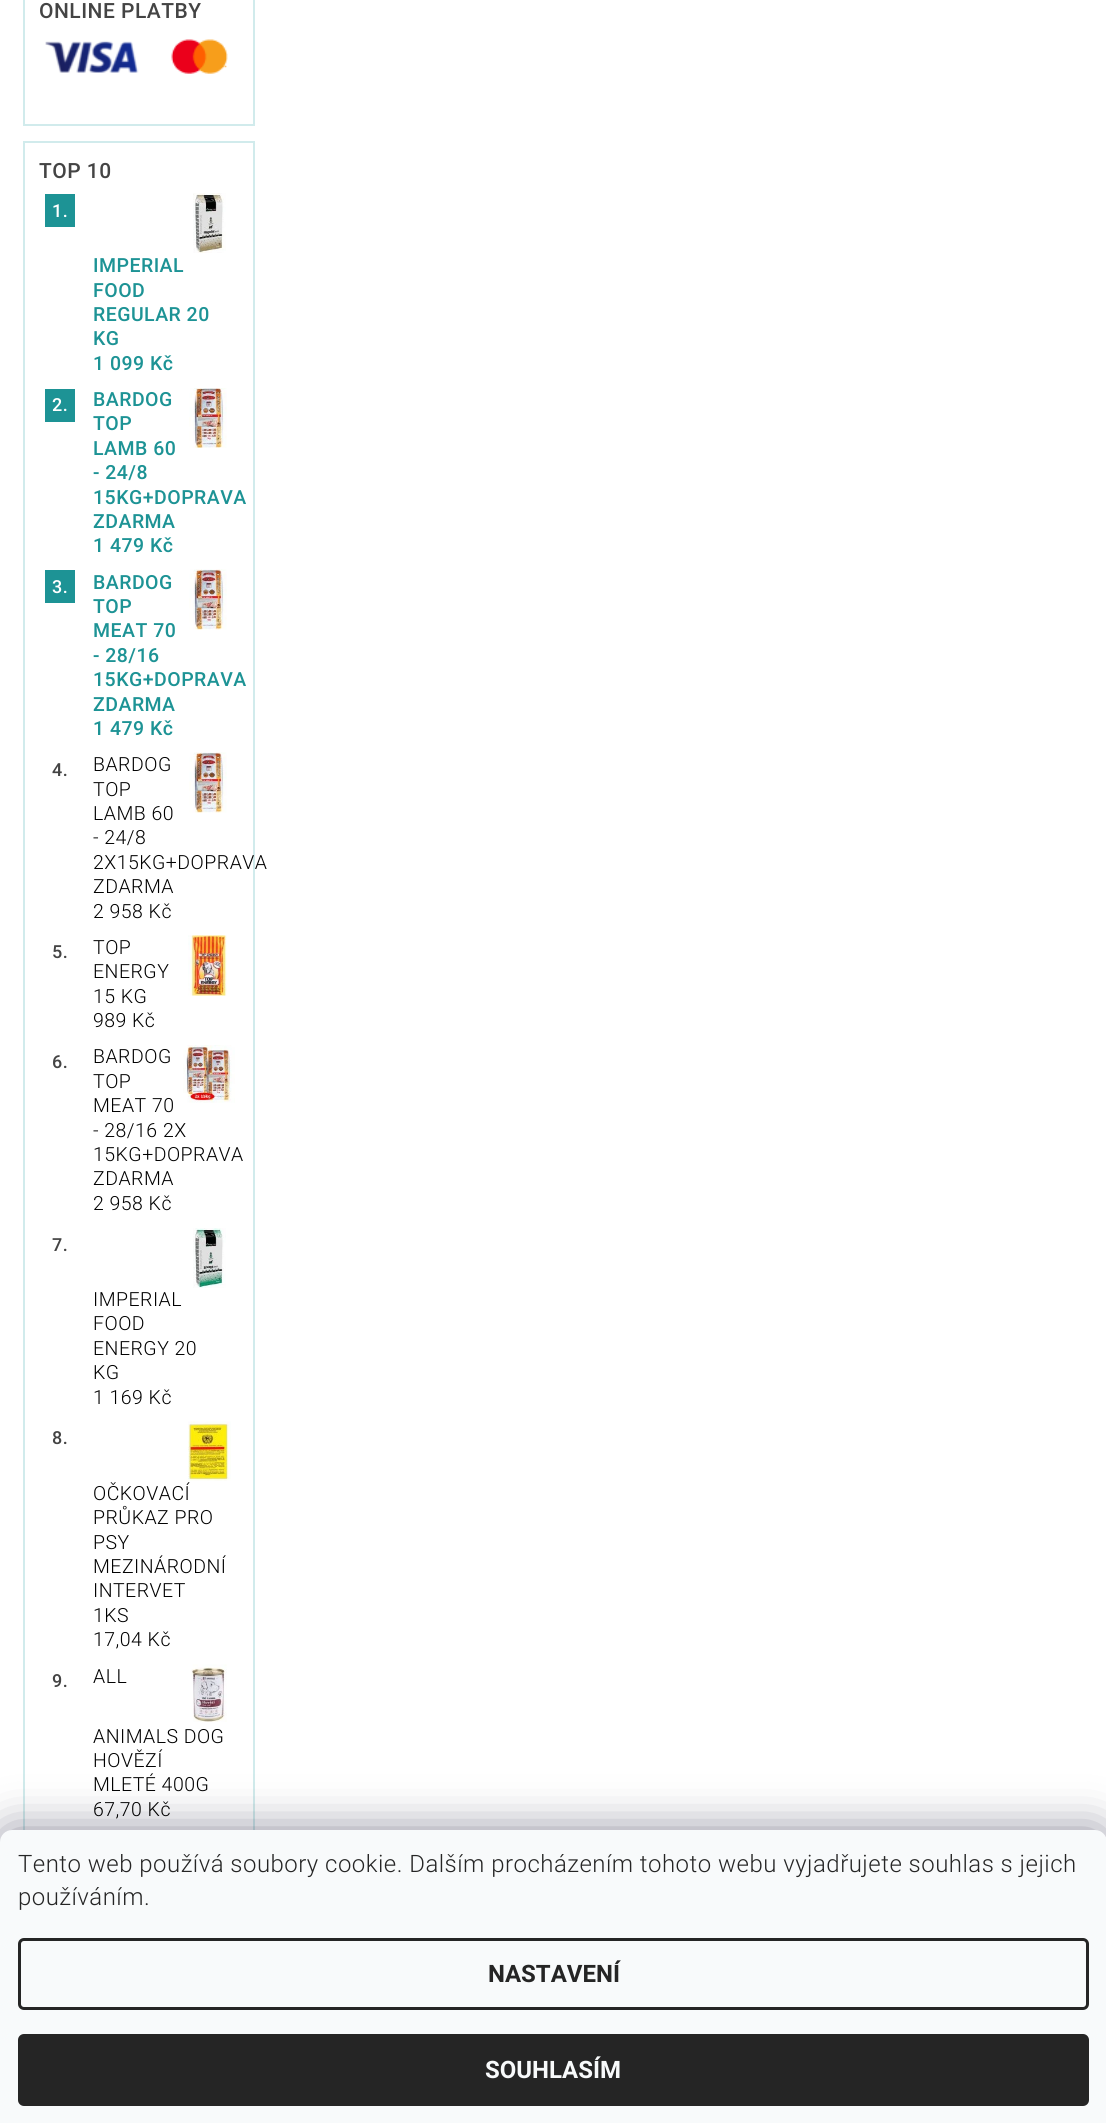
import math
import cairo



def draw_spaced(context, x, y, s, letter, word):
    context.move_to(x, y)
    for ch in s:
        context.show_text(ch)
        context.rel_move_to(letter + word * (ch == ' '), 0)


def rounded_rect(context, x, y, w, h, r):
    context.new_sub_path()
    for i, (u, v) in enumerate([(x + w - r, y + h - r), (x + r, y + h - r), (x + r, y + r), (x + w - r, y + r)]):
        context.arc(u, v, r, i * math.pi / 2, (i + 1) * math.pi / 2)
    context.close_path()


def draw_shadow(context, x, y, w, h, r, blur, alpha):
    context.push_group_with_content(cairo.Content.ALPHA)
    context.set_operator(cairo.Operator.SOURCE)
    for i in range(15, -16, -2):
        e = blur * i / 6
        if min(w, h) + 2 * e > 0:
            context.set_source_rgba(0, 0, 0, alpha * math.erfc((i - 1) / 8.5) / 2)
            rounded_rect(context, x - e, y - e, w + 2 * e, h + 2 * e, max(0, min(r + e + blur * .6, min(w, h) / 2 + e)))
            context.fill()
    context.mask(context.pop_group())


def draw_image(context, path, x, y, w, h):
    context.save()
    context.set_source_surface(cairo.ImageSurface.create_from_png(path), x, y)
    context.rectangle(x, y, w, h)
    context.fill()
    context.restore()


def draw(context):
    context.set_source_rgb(1, 1, 1)
    context.paint()
    context.rectangle(24, -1, 230, 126)
    context.set_source_rgb(209 / 255, 235 / 255, 236 / 255)
    context.stroke()
    draw_image(context, "images/1.png", 45, 39, 183, 35)
    context.rectangle(24, 142, 230, 1818)
    context.stroke()
    context.set_source_rgb(29 / 255, 147 / 255, 149 / 255)
    context.rectangle(45, 194, 30, 33)
    context.fill()
    draw_image(context, "images/2.png", 193, 193, 33, 60)
    draw_image(context, "images/3.png", 189, 388, 38, 60)
    context.rectangle(45, 389, 30, 33)
    context.fill()
    draw_image(context, "images/4.png", 189, 569, 38, 61)
    context.rectangle(45, 570, 30, 33)
    context.fill()
    draw_image(context, "images/5.png", 189, 752, 38, 61)
    draw_image(context, "images/6.png", 188, 935, 39, 61)
    draw_image(context, "images/7.png", 183, 1045, 52, 58)
    draw_image(context, "images/8.png", 193, 1228, 33, 60)
    draw_image(context, "images/9.png", 188, 1421, 43, 60)
    draw_image(context, "images/10.png", 191, 1664, 36, 58)
    context.set_source_rgb(27 / 255, 25 / 255, 57 / 255)
    draw_shadow(context, 0, 1830, 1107, 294, 12, 22.5, 0.5)
    context.set_source_rgb(248 / 255, 250 / 255, 251 / 255)
    context.new_path()
    context.move_to(12, 1830)
    context.line_to(1095, 1830)
    context.curve_to(1101.5, 1830, 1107, 1835.5, 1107, 1842)
    context.line_to(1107, 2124)
    context.line_to(0, 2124)
    context.line_to(0, 1842)
    context.curve_to(0, 1835.5, 5.5, 1830, 12, 1830)
    context.close_path()
    context.fill()
    rounded_rect(context, 19.5, 1939.5, 1068, 69, 4.5)
    context.set_source_rgb(37 / 255, 37 / 255, 37 / 255)
    context.set_line_width(3)
    context.stroke()
    rounded_rect(context, 18, 2034, 1071, 72, 6)
    context.fill()
    context.select_font_face("Roboto Medium")
    context.set_font_size(21)
    context.set_source_rgb(68 / 255, 68 / 255, 68 / 255)
    draw_spaced(context, 39, 18, "ONLINE PLATBY", 0.48, 0)
    draw_spaced(context, 39, 178, "TOP 10", 0.48, 0)
    context.set_font_size(18)
    context.set_source_rgb(1, 1, 1)
    draw_spaced(context, 52, 217, "1.", 0.48, 0)
    context.set_font_size(19.5)
    context.set_source_rgb(29 / 255, 147 / 255, 149 / 255)
    draw_spaced(context, 93, 272, "IMPERIAL", 0.48, 0)
    draw_spaced(context, 93, 297, "FOOD", 0.48, 0)
    draw_spaced(context, 93, 321, "REGULAR 20", 0.48, 0)
    draw_spaced(context, 93, 345, "KG", 0.48, 0)
    draw_spaced(context, 93, 370, "1 099 Kč", 0.48, 0)
    context.set_font_size(18)
    context.set_source_rgb(1, 1, 1)
    draw_spaced(context, 52, 411, "2.", 0.48, 0)
    context.set_font_size(19.5)
    context.set_source_rgb(29 / 255, 147 / 255, 149 / 255)
    draw_spaced(context, 93, 406, "BARDOG", 0.48, 0)
    draw_spaced(context, 93, 430, "TOP", 0.48, 0)
    draw_spaced(context, 93, 455, "LAMB 60", 0.48, 0)
    draw_spaced(context, 93, 479, "- 24/8", 0.48, 0)
    draw_spaced(context, 93, 504, "15KG+DOPRAVA", 0.48, 0)
    draw_spaced(context, 93, 528, "ZDARMA", 0.48, 0)
    draw_spaced(context, 93, 552, "1 479 Kč", 0.48, 0)
    context.set_font_size(18)
    context.set_source_rgb(1, 1, 1)
    draw_spaced(context, 52, 593, "3.", 0.48, 0)
    context.set_font_size(19.5)
    context.set_source_rgb(29 / 255, 147 / 255, 149 / 255)
    draw_spaced(context, 93, 589, "BARDOG", 0.48, 0)
    draw_spaced(context, 93, 613, "TOP", 0.48, 0)
    draw_spaced(context, 93, 637, "MEAT 70", 0.48, 0)
    draw_spaced(context, 93, 662, "- 28/16", 0.48, 0)
    draw_spaced(context, 93, 686, "15KG+DOPRAVA", 0.48, 0)
    draw_spaced(context, 93, 711, "ZDARMA", 0.48, 0)
    draw_spaced(context, 93, 735, "1 479 Kč", 0.48, 0)
    context.set_font_size(18)
    context.set_source_rgb(68 / 255, 68 / 255, 68 / 255)
    draw_spaced(context, 52, 776, "4.", 0.48, 0)
    context.select_font_face("Roboto Light")
    context.set_font_size(19.5)
    context.set_source_rgb(0, 0, 0)
    draw_spaced(context, 93, 771, "BARDOG", 0.48, 0)
    draw_spaced(context, 93, 796, "TOP", 0.48, 0)
    draw_spaced(context, 93, 820, "LAMB 60", 0.48, 0)
    draw_spaced(context, 93, 844, "- 24/8", 0.48, 0)
    draw_spaced(context, 93, 869, "2X15KG+DOPRAVA", 0.48, 0)
    draw_spaced(context, 93, 893, "ZDARMA", 0.48, 0)
    draw_spaced(context, 93, 918, "2 958 Kč", 0.48, 0)
    context.select_font_face("Roboto Medium")
    context.set_font_size(18)
    context.set_source_rgb(68 / 255, 68 / 255, 68 / 255)
    draw_spaced(context, 52, 958, "5.", 0.48, 0)
    context.select_font_face("Roboto Light")
    context.set_font_size(19.5)
    context.set_source_rgb(0, 0, 0)
    draw_spaced(context, 93, 954, "TOP", 0.48, 0)
    draw_spaced(context, 93, 978, "ENERGY", 0.48, 0)
    draw_spaced(context, 93, 1003, "15 KG", 0.48, 0)
    draw_spaced(context, 93, 1027, "989 Kč", 0.48, 0)
    context.select_font_face("Roboto Medium")
    context.set_font_size(18)
    context.set_source_rgb(68 / 255, 68 / 255, 68 / 255)
    draw_spaced(context, 52, 1068, "6.", 0.48, 0)
    context.select_font_face("Roboto Light")
    context.set_font_size(19.5)
    context.set_source_rgb(0, 0, 0)
    draw_spaced(context, 93, 1063, "BARDOG", 0.48, 0)
    draw_spaced(context, 93, 1088, "TOP", 0.48, 0)
    draw_spaced(context, 93, 1112, "MEAT 70", 0.48, 0)
    draw_spaced(context, 93, 1137, "- 28/16 2X", 0.48, 0)
    draw_spaced(context, 93, 1161, "15KG+DOPRAVA", 0.48, 0)
    draw_spaced(context, 93, 1185, "ZDARMA", 0.48, 0)
    draw_spaced(context, 93, 1210, "2 958 Kč", 0.48, 0)
    context.select_font_face("Roboto Medium")
    context.set_font_size(18)
    context.set_source_rgb(68 / 255, 68 / 255, 68 / 255)
    draw_spaced(context, 52, 1251, "7.", 0.48, 0)
    context.select_font_face("Roboto Light")
    context.set_font_size(19.5)
    context.set_source_rgb(0, 0, 0)
    draw_spaced(context, 93, 1306, "IMPERIAL", 0.48, 0)
    draw_spaced(context, 93, 1330, "FOOD", 0.48, 0)
    draw_spaced(context, 93, 1355, "ENERGY 20", 0.48, 0)
    draw_spaced(context, 93, 1379, "KG", 0.48, 0)
    draw_spaced(context, 93, 1404, "1 169 Kč", 0.48, 0)
    context.select_font_face("Roboto Medium")
    context.set_font_size(18)
    context.set_source_rgb(68 / 255, 68 / 255, 68 / 255)
    draw_spaced(context, 52, 1444, "8.", 0.48, 0)
    context.select_font_face("Roboto Light")
    context.set_font_size(19.5)
    context.set_source_rgb(0, 0, 0)
    draw_spaced(context, 93, 1500, "OČKOVACÍ", 0.48, 0)
    draw_spaced(context, 93, 1524, "PRŮKAZ PRO", 0.48, 0)
    draw_spaced(context, 93, 1549, "PSY", 0.48, 0)
    draw_spaced(context, 93, 1573, "MEZINÁRODNÍ", 0.48, 0)
    draw_spaced(context, 93, 1597, "INTERVET", 0.48, 0)
    draw_spaced(context, 93, 1622, "1KS", 0.48, 0)
    draw_spaced(context, 93, 1646, "17,04 Kč", 0.48, 0)
    context.select_font_face("Roboto Medium")
    context.set_font_size(18)
    context.set_source_rgb(68 / 255, 68 / 255, 68 / 255)
    draw_spaced(context, 52, 1687, "9.", 0.48, 0)
    context.select_font_face("Roboto Light")
    context.set_font_size(19.5)
    context.set_source_rgb(0, 0, 0)
    draw_spaced(context, 93, 1683, "ALL", 0.48, 0)
    draw_spaced(context, 93, 1743, "ANIMALS DOG", 0.48, 0)
    draw_spaced(context, 93, 1767, "HOVĚZÍ", 0.48, 0)
    draw_spaced(context, 93, 1791, "MLETÉ 400G", 0.48, 0)
    draw_spaced(context, 93, 1816, "67,70 Kč", 0.48, 0)
    context.set_font_size(24)
    context.set_source_rgb(37 / 255, 37 / 255, 37 / 255)
    draw_spaced(context, 18, 1872, "Tento web používá soubory cookie. Dalším procházením tohoto webu vyjadřujete souhlas s jejich", 0.48, 0)
    draw_spaced(context, 18, 1905, "používáním.", 0.48, 0)
    context.select_font_face("Roboto", cairo.FontSlant.NORMAL, cairo.FontWeight.BOLD)
    context.move_to(488, 1982)
    context.show_text("NASTAVENÍ")
    context.set_source_rgb(248 / 255, 250 / 255, 251 / 255)
    context.move_to(485, 2078)
    context.show_text("SOUHLASÍM")


surface = cairo.ImageSurface(cairo.Format.RGB24, 1106, 2123)
context = cairo.Context(surface)
options = cairo.FontOptions()
options.set_hint_metrics(cairo.HintMetrics.OFF)
options.set_hint_style(cairo.HintStyle.NONE)
context.set_font_options(options)
context.set_miter_limit(4)
draw(context)
surface.write_to_png("out.png")
